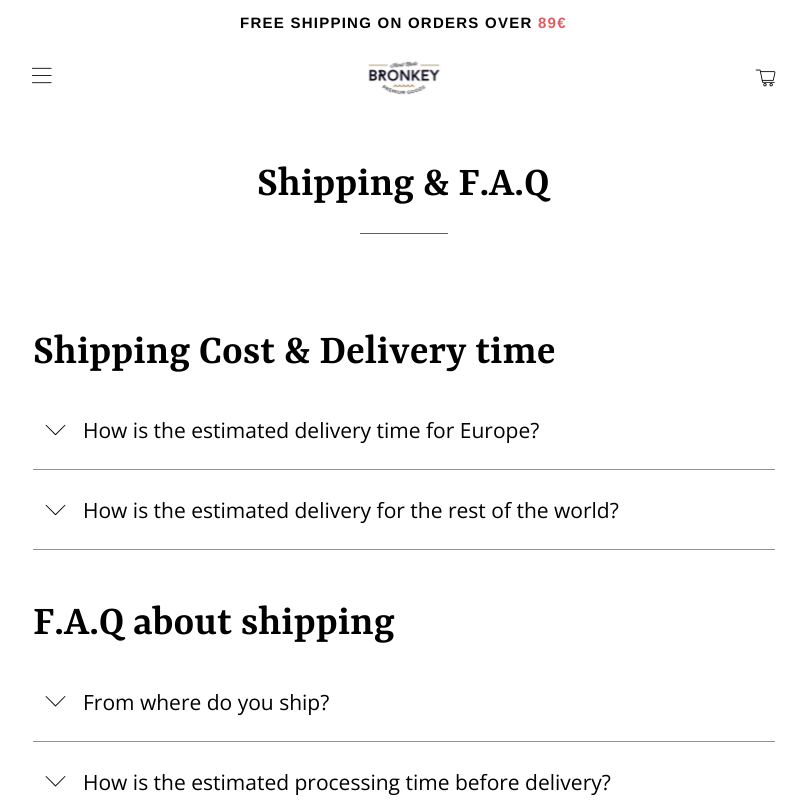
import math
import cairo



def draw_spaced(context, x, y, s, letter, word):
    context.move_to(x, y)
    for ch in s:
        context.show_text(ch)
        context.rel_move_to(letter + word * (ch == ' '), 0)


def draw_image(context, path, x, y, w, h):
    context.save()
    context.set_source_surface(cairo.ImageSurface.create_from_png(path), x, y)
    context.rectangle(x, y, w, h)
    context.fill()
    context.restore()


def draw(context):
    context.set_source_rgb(1, 1, 1)
    context.paint()
    draw_image(context, "images/1.png", 31, 67, 21, 17)
    draw_image(context, "images/2.png", 368, 61, 73, 34)
    draw_image(context, "images/3.png", 755, 69, 21, 18)
    context.set_source_rgb(96 / 255, 96 / 255, 96 / 255)
    context.rectangle(360, 233, 88, 1)
    context.fill()
    context.set_source_rgb(143 / 255, 147 / 255, 151 / 255)
    context.rectangle(33, 469, 742, 1)
    context.fill()
    draw_image(context, "images/4.png", 45, 424, 21, 12)
    context.rectangle(33, 549, 742, 1)
    context.fill()
    draw_image(context, "images/4.png", 45, 504, 21, 12)
    context.rectangle(33, 741, 742, 1)
    context.fill()
    draw_image(context, "images/5.png", 45, 696, 21, 11)
    draw_image(context, "images/5.png", 45, 776, 21, 11)
    context.select_font_face("Liberation Sans", cairo.FontSlant.NORMAL, cairo.FontWeight.BOLD)
    context.set_font_size(15)
    context.set_source_rgb(0, 0, 0)
    draw_spaced(context, 240, 28, "FREE SHIPPING ON ORDERS OVER", 1.25, 0)
    context.set_source_rgb(227 / 255, 92 / 255, 92 / 255)
    draw_spaced(context, 538, 28, "89€", 1.25, 0)
    context.select_font_face("Yrsa SemiBold")
    context.set_font_size(43.75)
    context.set_source_rgb(0, 0, 0)
    context.move_to(257, 195)
    context.show_text("Shipping & F.A.Q")
    context.move_to(33, 363)
    context.show_text("Shipping Cost & Delivery time")
    context.select_font_face("Open Sans")
    context.set_font_size(21)
    context.move_to(83, 438)
    context.show_text("How is the estimated delivery time for Europe?")
    context.move_to(83, 518)
    context.show_text("How is the estimated delivery for the rest of the world?")
    context.select_font_face("Yrsa SemiBold")
    context.set_font_size(43.75)
    context.move_to(33, 634)
    context.show_text("F.A.Q about shipping")
    context.select_font_face("Open Sans")
    context.set_font_size(21)
    context.move_to(83, 710)
    context.show_text("From where do you ship?")
    context.move_to(83, 790)
    context.show_text("How is the estimated processing time before delivery?")


surface = cairo.ImageSurface(cairo.Format.RGB24, 807, 806)
context = cairo.Context(surface)
options = cairo.FontOptions()
options.set_hint_metrics(cairo.HintMetrics.OFF)
options.set_hint_style(cairo.HintStyle.NONE)
context.set_font_options(options)
context.set_miter_limit(4)
draw(context)
surface.write_to_png("out.png")
